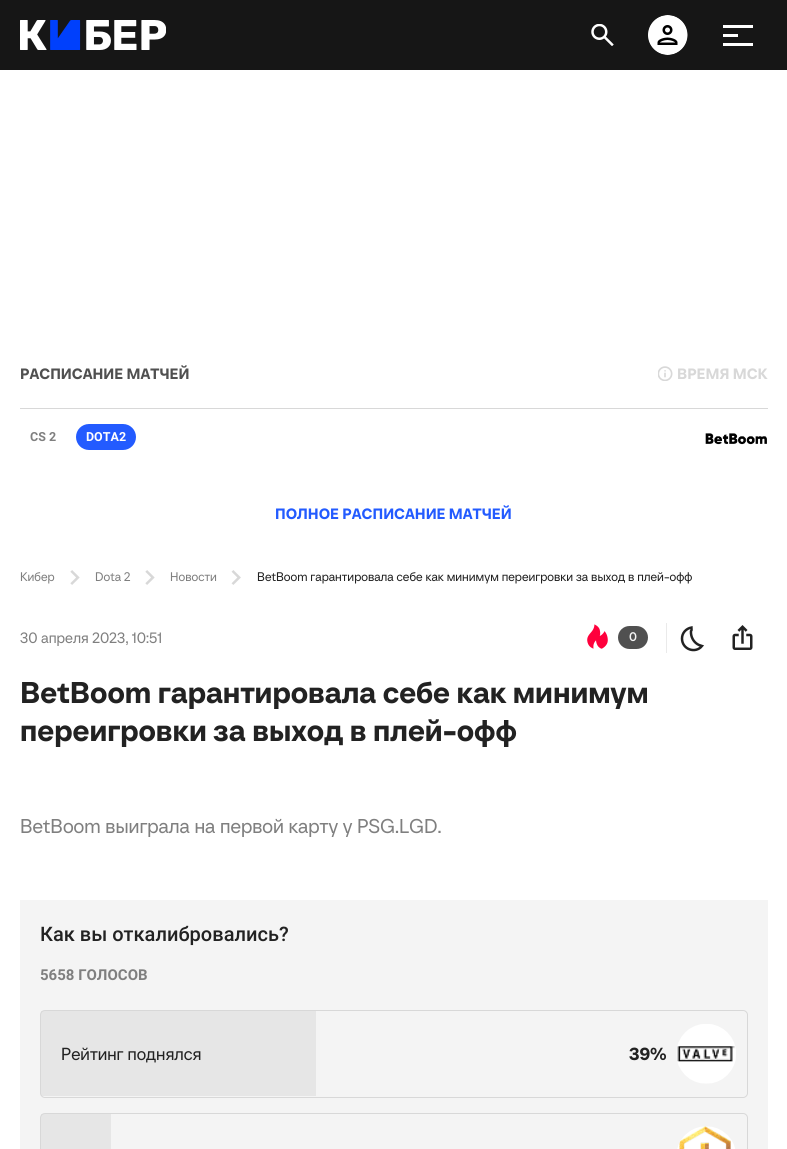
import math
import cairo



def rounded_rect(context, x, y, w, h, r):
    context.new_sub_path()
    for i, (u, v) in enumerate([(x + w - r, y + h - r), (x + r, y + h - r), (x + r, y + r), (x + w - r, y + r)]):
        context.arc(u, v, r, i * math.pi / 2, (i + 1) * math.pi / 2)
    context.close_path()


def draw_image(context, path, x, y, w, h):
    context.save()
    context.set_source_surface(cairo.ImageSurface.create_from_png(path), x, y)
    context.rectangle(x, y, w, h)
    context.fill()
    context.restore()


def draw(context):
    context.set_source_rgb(1, 1, 1)
    context.paint()
    context.set_source_rgb(22 / 255, 22 / 255, 22 / 255)
    context.rectangle(0, 0, 787, 70)
    context.fill()
    draw_image(context, "images/1.png", 20, 20, 146, 30)
    draw_image(context, "images/2.png", 591, 24, 23, 22)
    draw_image(context, "images/3.png", 648, 15, 40, 40)
    context.set_source_rgb(1, 1, 1)
    context.rectangle(723, 25, 30, 3)
    context.fill()
    context.rectangle(723, 34, 15, 3)
    context.fill()
    context.rectangle(723, 43, 30, 3)
    context.fill()
    context.set_source_rgb(216 / 255, 216 / 255, 216 / 255)
    context.rectangle(20, 408, 748, 1)
    context.fill()
    draw_image(context, "images/4.png", 658, 366, 15, 15)
    context.set_source_rgb(35 / 255, 91 / 255, 1)
    rounded_rect(context, 76, 424, 60, 26, 13)
    context.fill()
    draw_image(context, "images/5.png", 705, 433, 62, 12)
    draw_image(context, "images/6.png", 70, 570, 10, 15)
    draw_image(context, "images/6.png", 145, 570, 10, 15)
    draw_image(context, "images/7.png", 231, 570, 10, 15)
    draw_image(context, "images/8.png", 587, 624, 21, 25)
    context.set_source_rgb(80 / 255, 80 / 255, 80 / 255)
    rounded_rect(context, 618, 626, 30, 23, 11.5)
    context.fill()
    context.set_source_rgb(234 / 255, 234 / 255, 234 / 255)
    context.rectangle(666, 623, 1, 30)
    context.fill()
    context.new_path()
    context.move_to(682, 638.5)
    context.curve_to(682, 633, 686, 628.5, 691.5, 627.5)
    context.curve_to(692, 632.5, 690.5, 629, 691, 633.5)
    context.curve_to(691.5, 638.5, 694.5, 643, 699, 645)
    context.line_to(702, 646)
    context.curve_to(695.5, 654, 682, 649.5, 682, 638.5)
    context.close_path()
    context.set_source_rgb(34 / 255, 34 / 255, 34 / 255)
    context.set_line_width(2.5)
    context.stroke()
    draw_image(context, "images/9.png", 732, 625, 21, 25)
    context.set_source_rgb(244 / 255, 244 / 255, 244 / 255)
    context.rectangle(20, 900, 748, 249)
    context.fill()
    rounded_rect(context, 40.5, 1010.5, 707, 87, 4.5)
    context.set_source_rgb(216 / 255, 216 / 255, 216 / 255)
    context.set_line_width(1)
    context.stroke()
    context.set_source_rgba(216 / 255, 216 / 255, 216 / 255, 0.5)
    context.rectangle(41, 1011, 275, 85)
    context.fill()
    draw_image(context, "images/10.png", 676, 1024, 60, 60)
    rounded_rect(context, 40.5, 1113.5, 707, 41, 4.5)
    context.set_source_rgb(216 / 255, 216 / 255, 216 / 255)
    context.stroke()
    context.set_source_rgba(216 / 255, 216 / 255, 216 / 255, 0.5)
    context.rectangle(41, 1114, 70, 35)
    context.fill()
    draw_image(context, "images/11.png", 677, 1126, 58, 23)
    context.select_font_face("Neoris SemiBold")
    context.set_font_size(15)
    context.set_source_rgb(80 / 255, 80 / 255, 80 / 255)
    context.move_to(20, 379)
    context.show_text("РАСПИСАНИЕ МАТЧЕЙ")
    context.set_source_rgb(216 / 255, 216 / 255, 216 / 255)
    context.move_to(677, 379)
    context.show_text("ВРЕМЯ МСК")
    context.select_font_face("Roboto", cairo.FontSlant.NORMAL, cairo.FontWeight.BOLD)
    context.set_font_size(12.5)
    context.set_source_rgb(127 / 255, 127 / 255, 127 / 255)
    context.move_to(30, 441)
    context.show_text("CS 2")
    context.set_source_rgb(1, 1, 1)
    context.move_to(86, 441)
    context.show_text("DOTA2")
    context.select_font_face("Neoris SemiBold")
    context.set_font_size(15)
    context.set_source_rgb(35 / 255, 91 / 255, 1)
    context.move_to(275, 519)
    context.show_text("ПОЛНОЕ РАСПИСАНИЕ МАТЧЕЙ")
    context.select_font_face("Neoris")
    context.set_font_size(12.5)
    context.set_source_rgb(127 / 255, 127 / 255, 127 / 255)
    context.move_to(20, 581)
    context.show_text("Кибер")
    context.move_to(95, 581)
    context.show_text("Dota 2")
    context.move_to(170, 581)
    context.show_text("Новости")
    context.set_source_rgb(34 / 255, 34 / 255, 34 / 255)
    context.move_to(257, 581)
    context.show_text("BetBoom гарантировала себе как минимум переигровки за выход в плей-офф")
    context.set_font_size(15)
    context.set_source_rgb(127 / 255, 127 / 255, 127 / 255)
    context.move_to(20, 643)
    context.show_text("30 апреля 2023, 10:51")
    context.select_font_face("Neoris Medium")
    context.set_font_size(12.5)
    context.set_source_rgb(244 / 255, 244 / 255, 244 / 255)
    context.move_to(629, 641)
    context.show_text("0")
    context.select_font_face("Neoris SemiBold")
    context.set_font_size(30)
    context.set_source_rgb(34 / 255, 34 / 255, 34 / 255)
    context.move_to(20, 703)
    context.show_text("BetBoom гарантировала себе как минимум")
    context.move_to(20, 741)
    context.show_text("переигровки за выход в плей-офф")
    context.select_font_face("Neoris")
    context.set_font_size(20)
    context.set_source_rgb(127 / 255, 127 / 255, 127 / 255)
    context.move_to(20, 833)
    context.show_text("BetBoom выиграла на первой карту у PSG.LGD.")
    context.select_font_face("Roboto Medium")
    context.set_source_rgb(34 / 255, 34 / 255, 34 / 255)
    context.move_to(40, 941)
    context.show_text("Как вы откалибровались?")
    context.select_font_face("Roboto", cairo.FontSlant.NORMAL, cairo.FontWeight.BOLD)
    context.set_font_size(15)
    context.set_source_rgb(127 / 255, 127 / 255, 127 / 255)
    context.move_to(40, 980)
    context.show_text("5658 ГОЛОСОВ")
    context.select_font_face("Neoris")
    context.set_font_size(17.5)
    context.set_source_rgb(34 / 255, 34 / 255, 34 / 255)
    context.move_to(61, 1060)
    context.show_text("Рейтинг поднялся")
    context.select_font_face("Neoris SemiBold")
    context.move_to(629, 1060)
    context.show_text("39%")


surface = cairo.ImageSurface(cairo.Format.RGB24, 787, 1149)
context = cairo.Context(surface)
options = cairo.FontOptions()
options.set_hint_metrics(cairo.HintMetrics.OFF)
options.set_hint_style(cairo.HintStyle.NONE)
context.set_font_options(options)
context.set_miter_limit(4)
draw(context)
surface.write_to_png("out.png")
